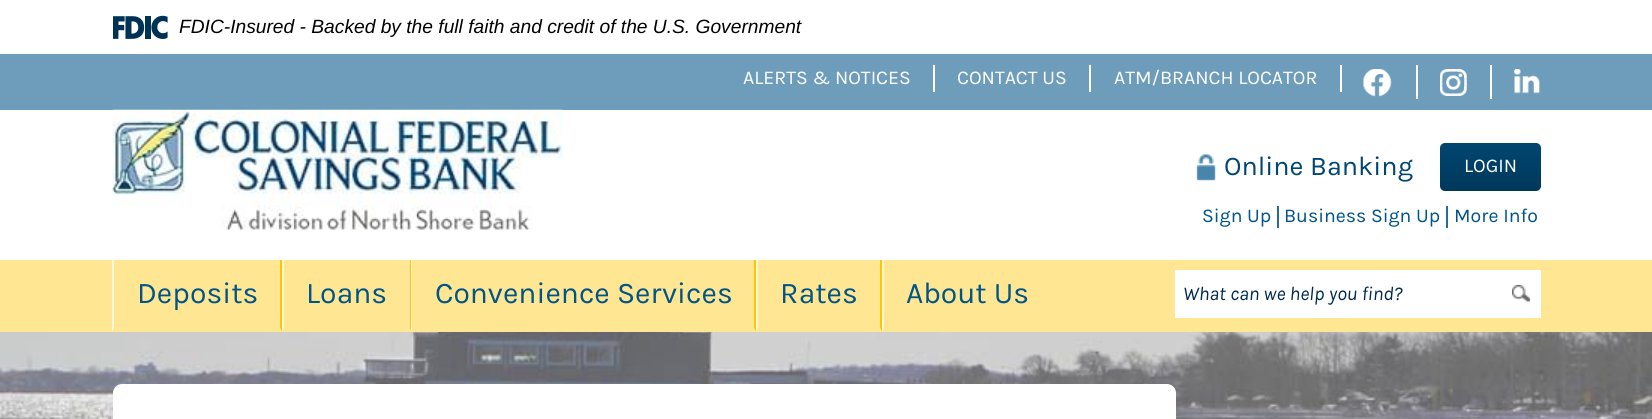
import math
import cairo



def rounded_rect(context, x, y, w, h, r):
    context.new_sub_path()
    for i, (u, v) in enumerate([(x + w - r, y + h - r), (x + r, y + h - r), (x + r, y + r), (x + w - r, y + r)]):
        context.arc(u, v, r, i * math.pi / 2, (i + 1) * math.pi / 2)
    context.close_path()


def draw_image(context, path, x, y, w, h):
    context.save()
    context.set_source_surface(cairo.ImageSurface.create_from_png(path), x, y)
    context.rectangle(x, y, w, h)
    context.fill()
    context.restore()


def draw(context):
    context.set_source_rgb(1, 1, 1)
    context.paint()
    draw_image(context, "images/1.png", 113, 15, 55, 24)
    context.set_source_rgb(109 / 255, 157 / 255, 187 / 255)
    context.rectangle(0, 54, 1652, 56)
    context.fill()
    context.set_source_rgb(1, 1, 1)
    context.rectangle(933, 65, 2, 27)
    context.fill()
    context.rectangle(1089, 65, 2, 27)
    context.fill()
    context.rectangle(1340, 65, 2, 27)
    context.fill()
    context.rectangle(1416, 65, 2, 34)
    context.fill()
    draw_image(context, "images/2.png", 1363, 69, 29, 28)
    context.rectangle(1490, 65, 2, 34)
    context.fill()
    draw_image(context, "images/3.png", 1440, 69, 27, 27)
    draw_image(context, "images/4.png", 1514, 69, 26, 25)
    draw_image(context, "images/5.png", 112, 109, 451, 121)
    draw_image(context, "images/6.png", 1196, 154, 20, 27)
    gradient = cairo.LinearGradient(1490, 143, 1490, 191)
    gradient.add_color_stop_rgba(0, 0, 70 / 255, 113 / 255, 1)
    gradient.add_color_stop_rgba(1, 0, 56 / 255, 91 / 255, 1)
    context.set_source(gradient)
    rounded_rect(context, 1440, 143, 101, 48, 5)
    context.fill()
    context.set_source_rgb(36 / 255, 108 / 255, 153 / 255)
    context.rectangle(1277, 206, 2, 22)
    context.fill()
    context.rectangle(1446, 206, 2, 22)
    context.fill()
    context.set_source_rgb(1, 230 / 255, 146 / 255)
    context.rectangle(0, 260, 1652, 72)
    context.fill()
    context.set_source_rgb(1, 197 / 255, 0)
    context.new_path()
    context.move_to(282, 260)
    context.line_to(282, 332)
    context.line_to(280, 328)
    context.line_to(280, 260)
    context.close_path()
    context.fill()
    context.set_source_rgb(1, 230 / 255, 146 / 255)
    context.new_path()
    context.move_to(282, 332)
    context.line_to(112, 332)
    context.line_to(114, 328)
    context.line_to(280, 328)
    context.close_path()
    context.fill()
    context.set_source_rgb(1, 247 / 255, 219 / 255)
    context.new_path()
    context.move_to(112, 332)
    context.line_to(112, 260)
    context.line_to(114, 260)
    context.line_to(114, 328)
    context.close_path()
    context.fill()
    context.set_source_rgb(1, 197 / 255, 0)
    context.new_path()
    context.move_to(411, 260)
    context.line_to(411, 332)
    context.line_to(410, 328)
    context.line_to(410, 260)
    context.close_path()
    context.fill()
    context.set_source_rgb(1, 230 / 255, 146 / 255)
    context.new_path()
    context.move_to(411, 332)
    context.line_to(282, 332)
    context.line_to(284, 328)
    context.line_to(410, 328)
    context.close_path()
    context.fill()
    context.set_source_rgb(1, 247 / 255, 219 / 255)
    context.new_path()
    context.move_to(282, 332)
    context.line_to(282, 260)
    context.line_to(284, 260)
    context.line_to(284, 328)
    context.close_path()
    context.fill()
    context.set_source_rgb(1, 197 / 255, 0)
    context.new_path()
    context.move_to(756, 260)
    context.line_to(756, 332)
    context.line_to(754, 328)
    context.line_to(754, 260)
    context.close_path()
    context.fill()
    context.set_source_rgb(1, 230 / 255, 146 / 255)
    context.new_path()
    context.move_to(756, 332)
    context.line_to(411, 332)
    context.line_to(412, 328)
    context.line_to(754, 328)
    context.close_path()
    context.fill()
    context.set_source_rgb(1, 247 / 255, 219 / 255)
    context.new_path()
    context.move_to(411, 332)
    context.line_to(411, 260)
    context.line_to(412, 260)
    context.line_to(412, 328)
    context.close_path()
    context.fill()
    context.set_source_rgb(1, 197 / 255, 0)
    context.new_path()
    context.move_to(882, 260)
    context.line_to(882, 332)
    context.line_to(880, 328)
    context.line_to(880, 260)
    context.close_path()
    context.fill()
    context.set_source_rgb(1, 230 / 255, 146 / 255)
    context.new_path()
    context.move_to(882, 332)
    context.line_to(756, 332)
    context.line_to(758, 328)
    context.line_to(880, 328)
    context.close_path()
    context.fill()
    context.set_source_rgb(1, 247 / 255, 219 / 255)
    context.new_path()
    context.move_to(756, 332)
    context.line_to(756, 260)
    context.line_to(758, 260)
    context.line_to(758, 328)
    context.close_path()
    context.fill()
    context.new_path()
    context.move_to(882, 332)
    context.line_to(882, 260)
    context.line_to(884, 260)
    context.line_to(884, 328)
    context.close_path()
    context.fill()
    context.set_source_rgb(1, 1, 1)
    context.rectangle(1175, 270, 366, 48)
    context.fill()
    draw_image(context, "images/7.png", 1512, 285, 18, 17)
    draw_image(context, "images/8.png", 0, 332, 1652, 87)
    rounded_rect(context, 113, 384, 1063, 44, 9)
    context.fill()
    context.select_font_face("Liberation Sans", cairo.FontSlant.ITALIC)
    context.set_font_size(19.2)
    context.set_source_rgb(0, 0, 0)
    context.move_to(179, 33)
    context.show_text("FDIC-Insured - Backed by the full faith and credit of the U.S. Government")
    context.select_font_face("Karla")
    context.set_font_size(19.5)
    context.set_source_rgb(1, 1, 1)
    context.move_to(743, 84)
    context.show_text("ALERTS & NOTICES")
    context.move_to(957, 84)
    context.show_text("CONTACT US")
    context.move_to(1114, 84)
    context.show_text("ATM/BRANCH LOCATOR")
    context.set_font_size(27)
    context.set_source_rgb(0, 70 / 255, 113 / 255)
    context.move_to(1224, 175)
    context.show_text("Online Banking")
    context.set_font_size(19.5)
    context.set_source_rgb(1, 1, 1)
    context.move_to(1464, 172)
    context.show_text("LOGIN")
    context.set_source_rgb(0, 84 / 255, 136 / 255)
    context.move_to(1202, 222)
    context.show_text("Sign Up")
    context.move_to(1284, 222)
    context.show_text("Business Sign Up")
    context.move_to(1454, 222)
    context.show_text("More Info")
    context.set_font_size(30)
    context.move_to(137, 303)
    context.show_text("Deposits")
    context.move_to(306, 303)
    context.show_text("Loans")
    context.move_to(435, 303)
    context.show_text("Convenience Services")
    context.move_to(780, 303)
    context.show_text("Rates")
    context.move_to(906, 303)
    context.show_text("About Us")
    context.select_font_face("Karla", cairo.FontSlant.ITALIC)
    context.set_font_size(19.5)
    context.set_source_rgb(0, 42 / 255, 78 / 255)
    context.move_to(1183, 300)
    context.show_text("What can we help you find?")


surface = cairo.ImageSurface(cairo.Format.RGB24, 1652, 419)
context = cairo.Context(surface)
options = cairo.FontOptions()
options.set_hint_metrics(cairo.HintMetrics.OFF)
options.set_hint_style(cairo.HintStyle.NONE)
context.set_font_options(options)
context.set_miter_limit(4)
draw(context)
surface.write_to_png("out.png")
